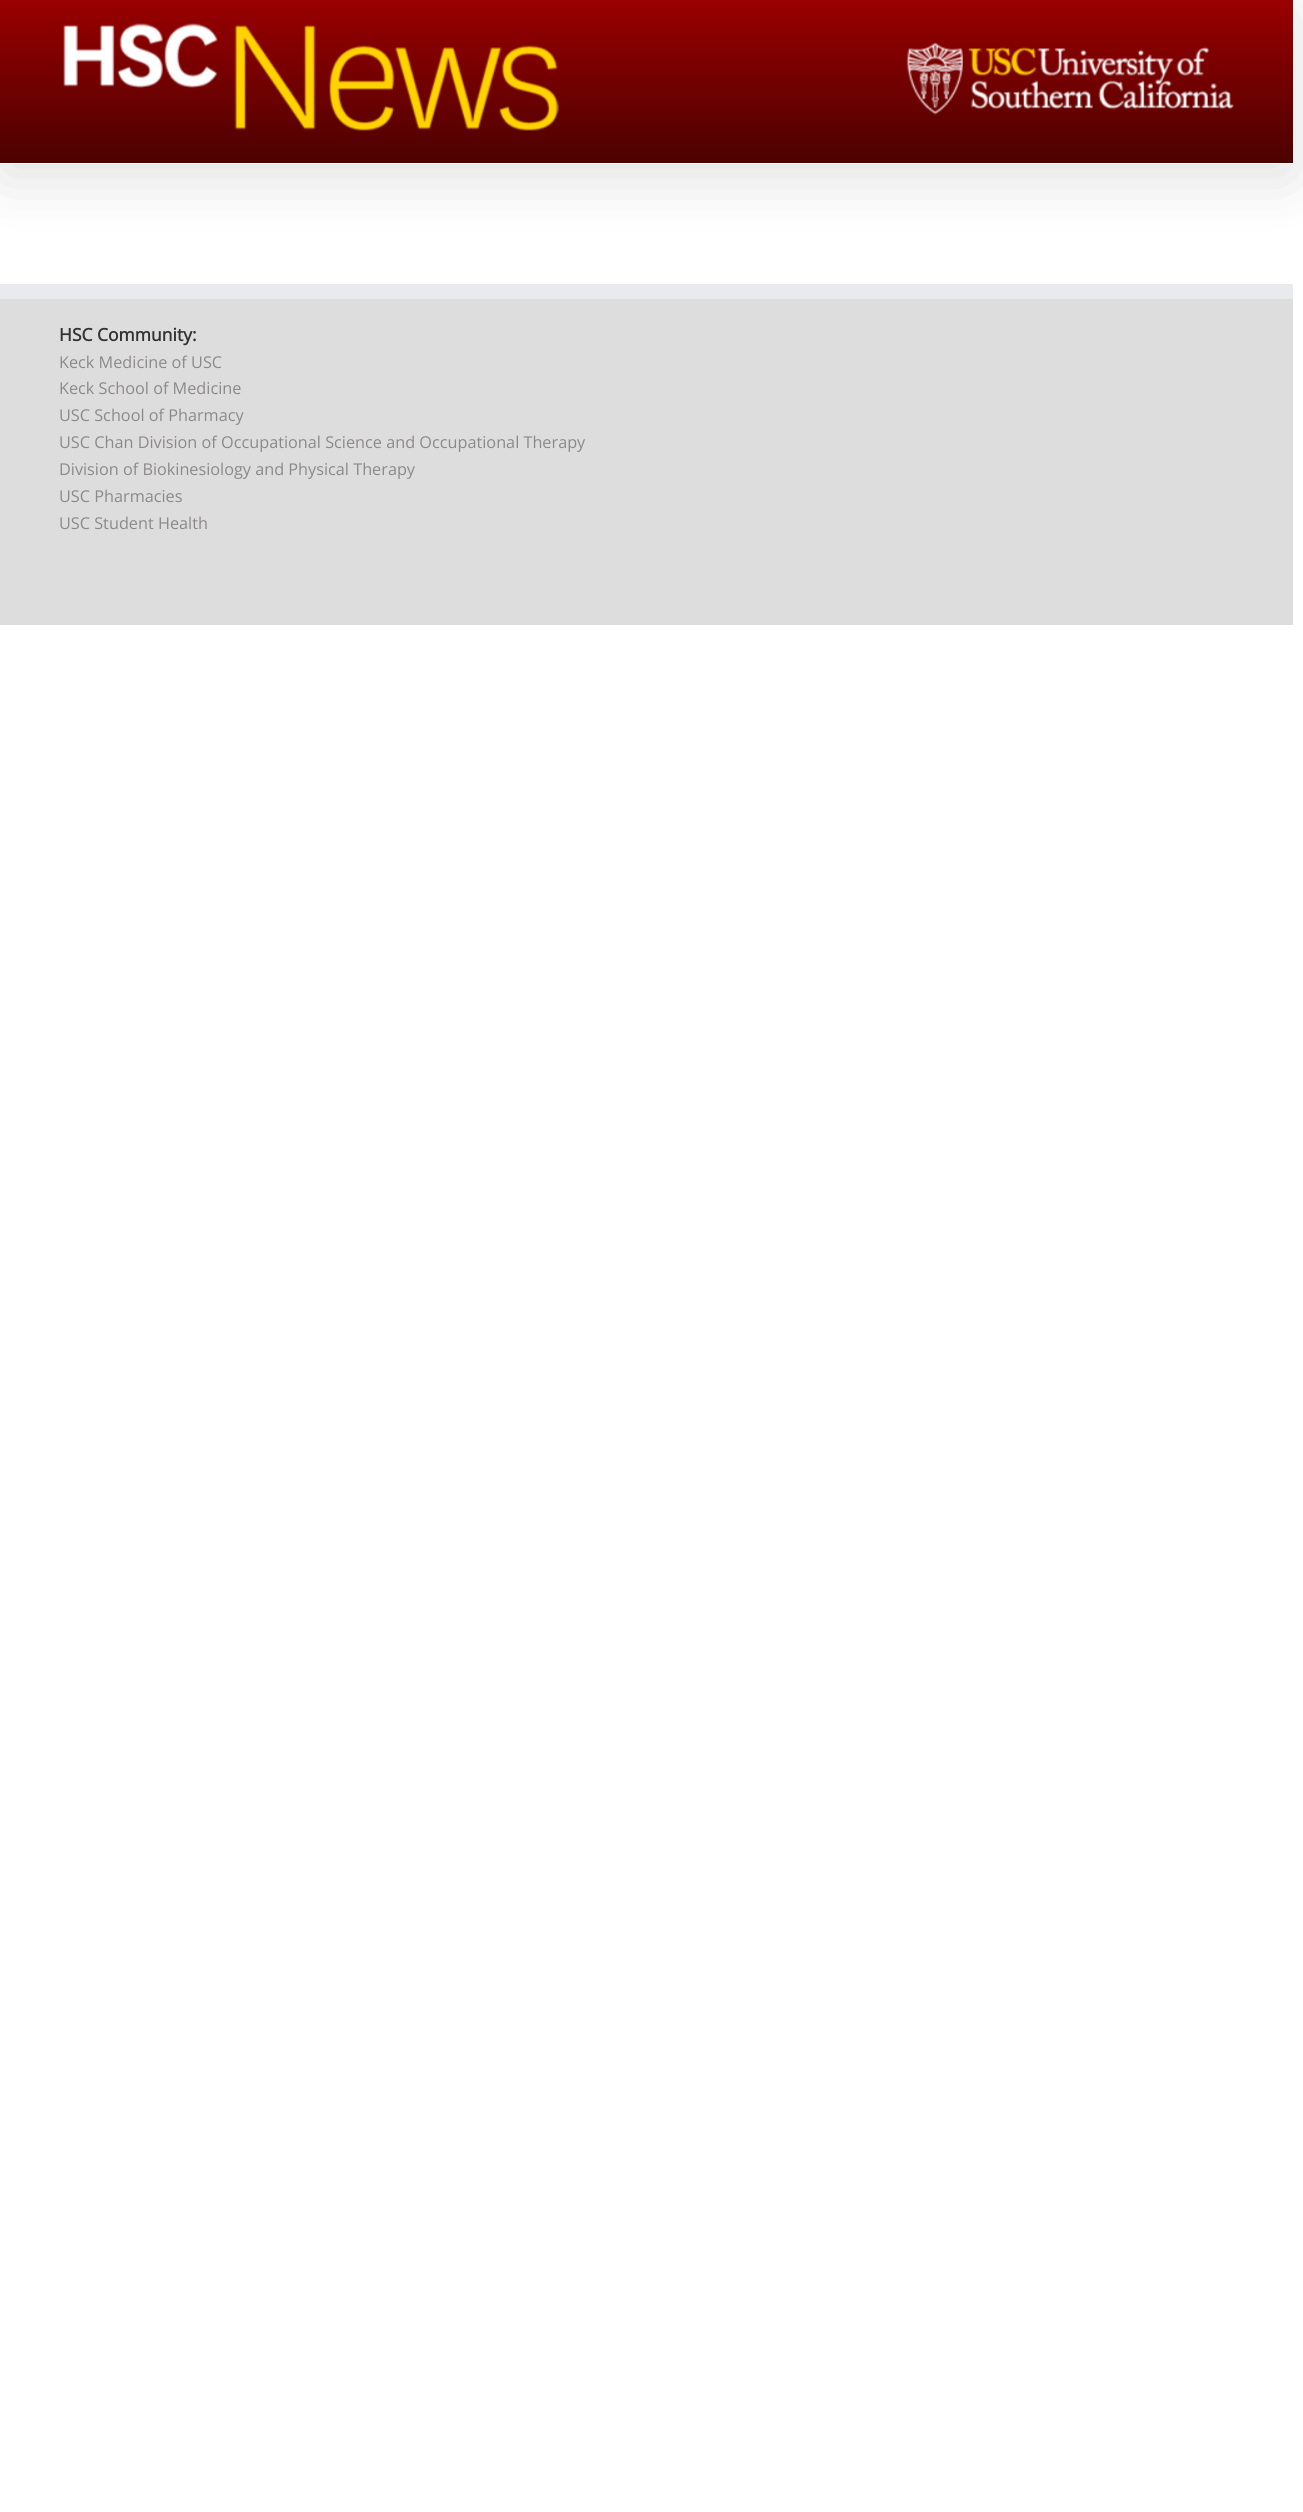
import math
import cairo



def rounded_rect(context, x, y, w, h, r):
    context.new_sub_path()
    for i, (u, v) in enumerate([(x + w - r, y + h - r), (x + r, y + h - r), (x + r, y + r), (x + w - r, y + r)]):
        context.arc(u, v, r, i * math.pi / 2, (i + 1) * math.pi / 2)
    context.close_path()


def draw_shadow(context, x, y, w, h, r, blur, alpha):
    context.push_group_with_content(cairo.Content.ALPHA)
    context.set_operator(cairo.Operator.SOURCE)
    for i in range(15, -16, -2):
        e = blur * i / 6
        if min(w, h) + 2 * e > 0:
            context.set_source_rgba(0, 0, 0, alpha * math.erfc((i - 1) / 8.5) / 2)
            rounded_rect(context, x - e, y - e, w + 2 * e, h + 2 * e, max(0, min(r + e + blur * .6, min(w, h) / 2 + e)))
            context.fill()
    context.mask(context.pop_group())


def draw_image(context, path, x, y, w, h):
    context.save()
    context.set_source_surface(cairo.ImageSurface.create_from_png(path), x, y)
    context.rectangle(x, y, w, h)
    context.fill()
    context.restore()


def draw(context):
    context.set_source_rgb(1, 1, 1)
    context.paint()
    gradient = cairo.LinearGradient(646, 0, 646, 164)
    gradient.add_color_stop_rgba(0, 153 / 255, 0, 0, 1)
    gradient.add_color_stop_rgba(1, 75 / 255, 1 / 255, 0, 1)
    context.set_source(gradient)
    context.rectangle(0, 0, 1293, 163)
    context.fill()
    context.save()
    context.set_fill_rule(cairo.FillRule.EVEN_ODD)
    context.new_path()
    context.move_to(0, 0)
    context.line_to(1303, 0)
    context.line_to(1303, 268)
    context.line_to(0, 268)
    context.close_path()
    context.move_to(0, 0)
    context.line_to(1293, 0)
    context.line_to(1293, 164)
    context.line_to(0, 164)
    context.close_path()
    context.clip()
    context.set_source_rgb(0, 0, 0)
    draw_shadow(context, 3, 15, 1287, 159, 0, 31, 0.14)
    context.restore()
    draw_image(context, "images/1.png", 63, 23, 496, 108)
    draw_image(context, "images/2.png", 906, 42, 328, 73)
    context.set_source_rgb(1, 1, 1)
    context.rectangle(0, 163, 1293, 1)
    context.fill()
    context.set_source_rgb(221 / 255, 221 / 255, 221 / 255)
    context.rectangle(0, 299, 1293, 326)
    context.fill()
    context.set_source_rgb(233 / 255, 234 / 255, 238 / 255)
    context.rectangle(0, 284, 1293, 15)
    context.fill()
    context.select_font_face("Open Sans", cairo.FontSlant.NORMAL, cairo.FontWeight.BOLD)
    context.set_font_size(17.5)
    context.set_source_rgb(51 / 255, 51 / 255, 51 / 255)
    context.move_to(59, 341)
    context.show_text("HSC Community:")
    context.select_font_face("Open Sans")
    context.set_font_size(16.25)
    context.set_source_rgb(140 / 255, 137 / 255, 137 / 255)
    context.move_to(59, 368)
    context.show_text("Keck Medicine of USC")
    context.move_to(59, 394)
    context.show_text("Keck School of Medicine")
    context.move_to(59, 421)
    context.show_text("USC School of Pharmacy")
    context.move_to(59, 448)
    context.show_text("USC Chan Division of Occupational Science and Occupational Therapy")
    context.move_to(59, 475)
    context.show_text("Division of Biokinesiology and Physical Therapy")
    context.move_to(59, 502)
    context.show_text("USC Pharmacies")
    context.move_to(59, 529)
    context.show_text("USC Student Health")


surface = cairo.ImageSurface(cairo.Format.RGB24, 1303, 2512)
context = cairo.Context(surface)
options = cairo.FontOptions()
options.set_hint_metrics(cairo.HintMetrics.OFF)
options.set_hint_style(cairo.HintStyle.NONE)
context.set_font_options(options)
context.set_miter_limit(4)
draw(context)
surface.write_to_png("out.png")
